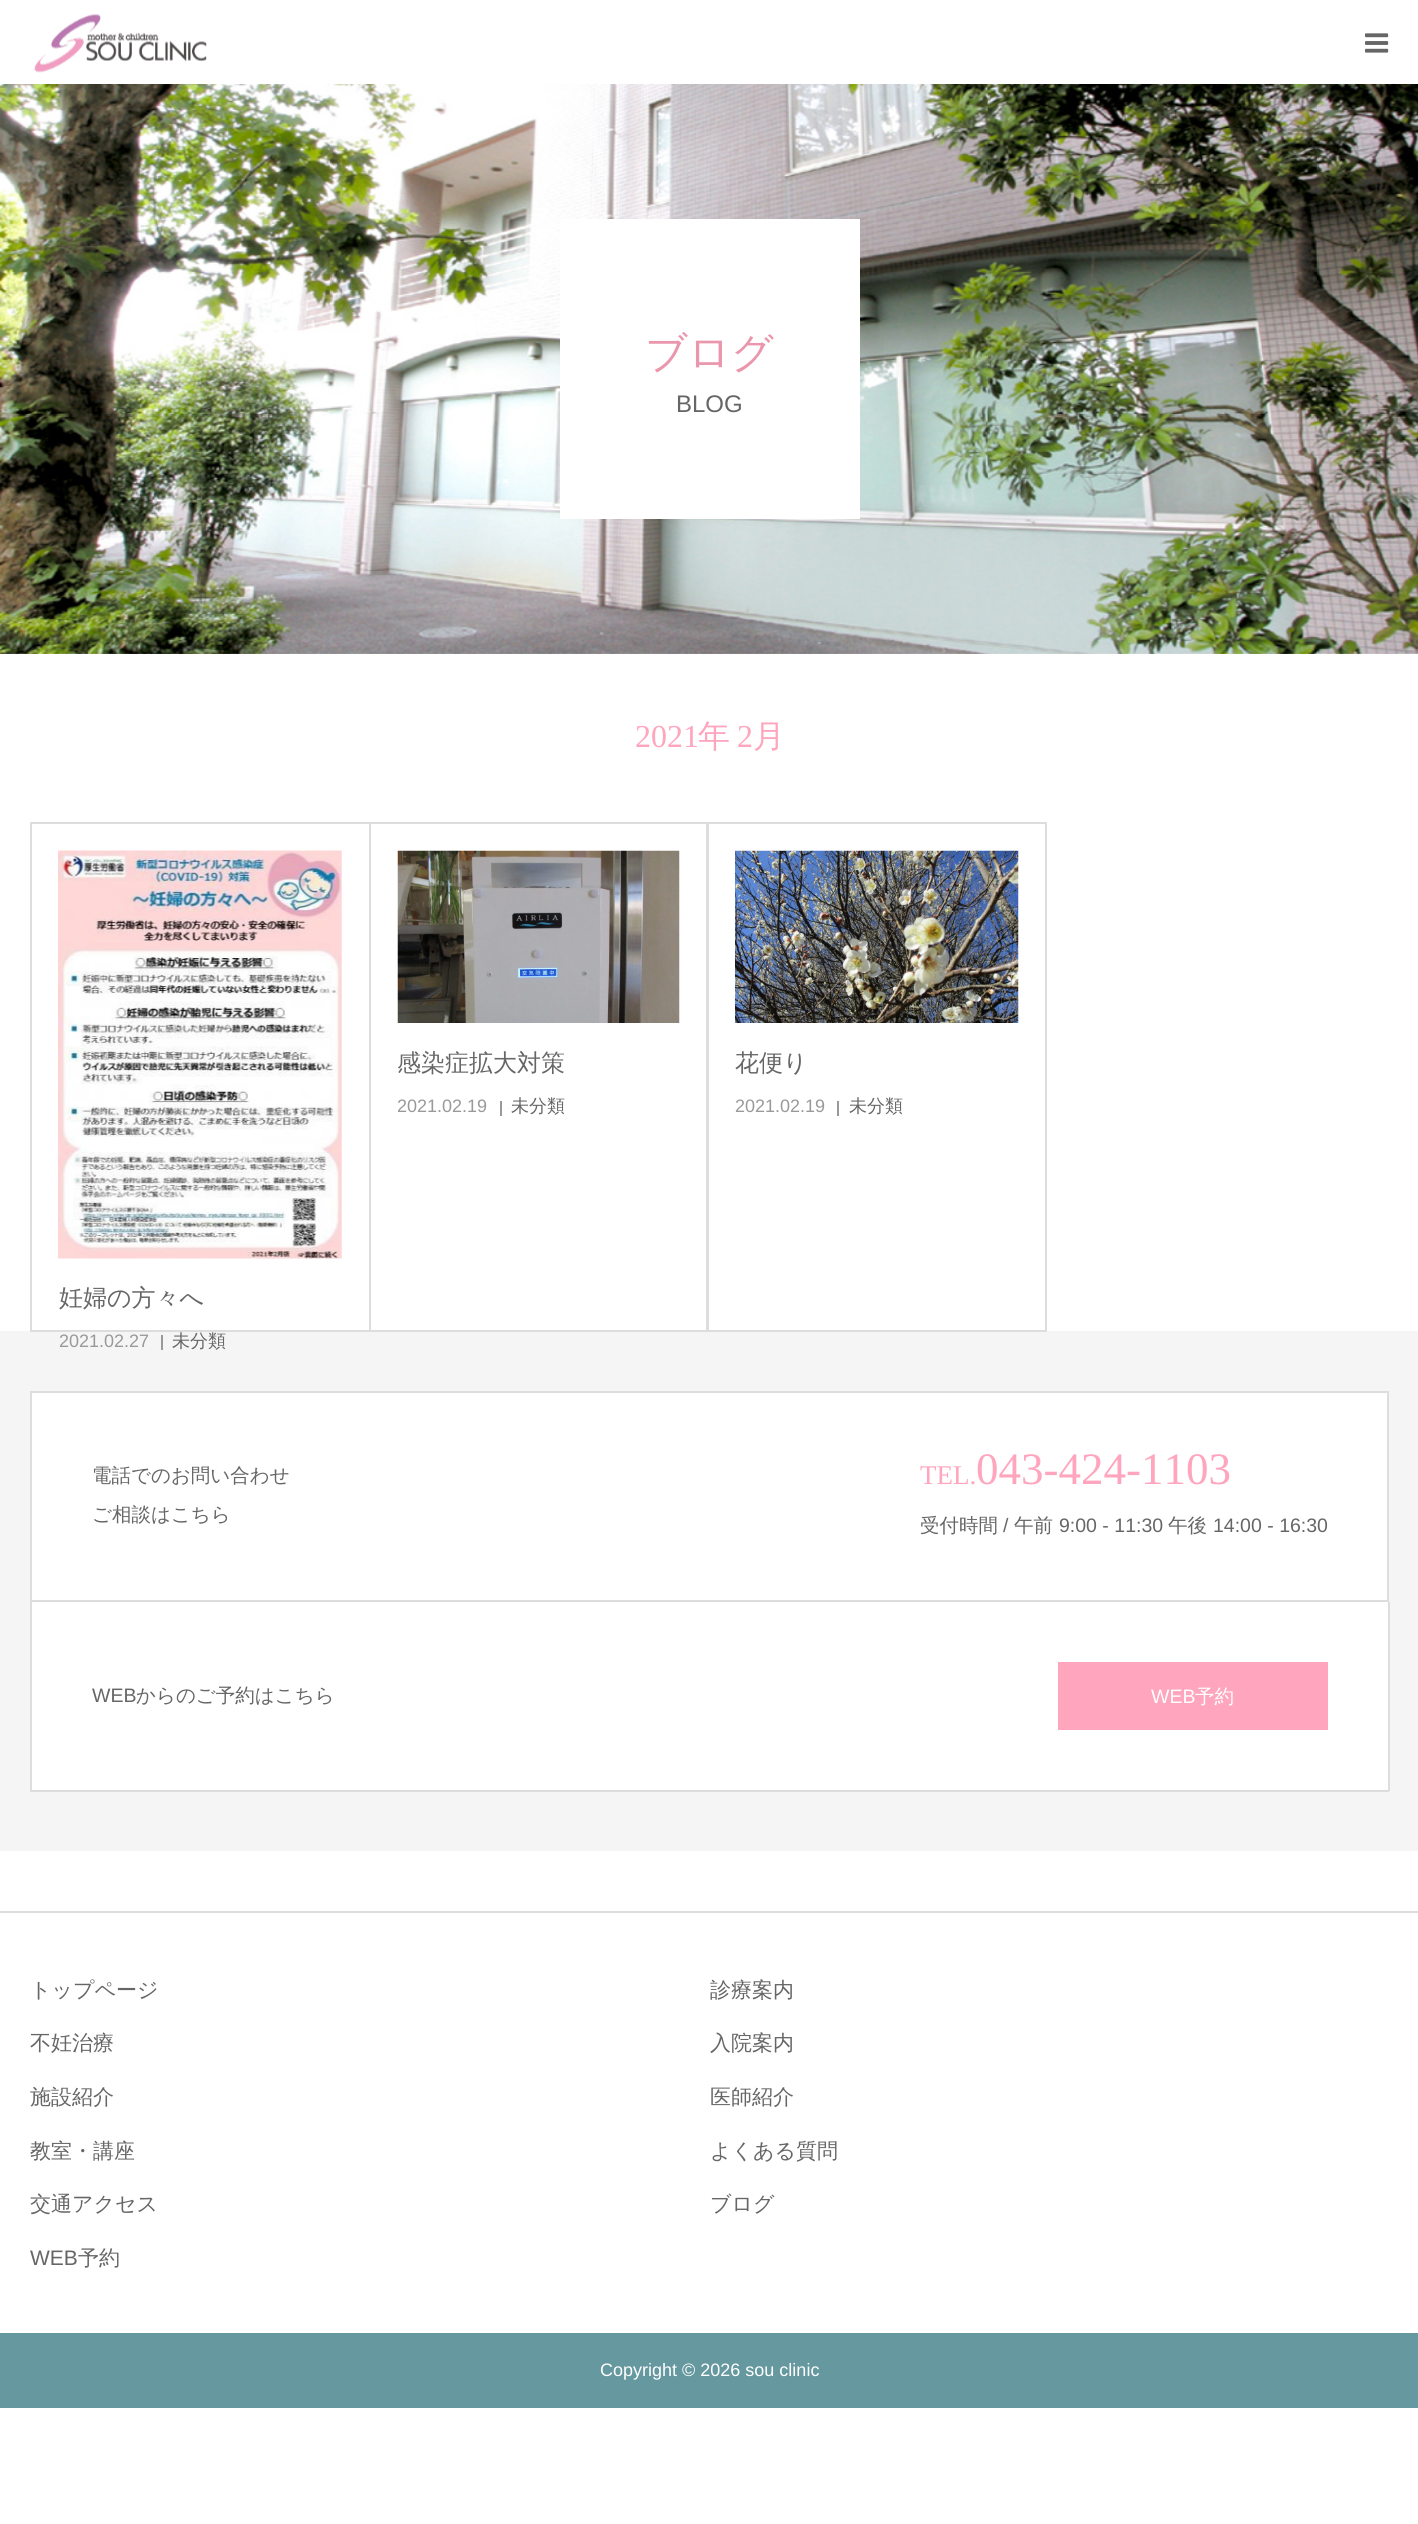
import math
import cairo



def draw_image(context, path, x, y, w, h):
    context.save()
    context.set_source_surface(cairo.ImageSurface.create_from_png(path), x, y)
    context.rectangle(x, y, w, h)
    context.fill()
    context.restore()


def draw(context):
    context.set_source_rgb(1, 1, 1)
    context.paint()
    draw_image(context, "images/1.png", 34, 14, 173, 59)
    draw_image(context, "images/2.png", 1365, 33, 24, 20)
    draw_image(context, "images/3.png", 0, 84, 1418, 570)
    context.set_source_rgb(1, 1, 1)
    context.rectangle(560, 219, 300, 300)
    context.fill()
    context.set_source_rgb(245 / 255, 245 / 255, 245 / 255)
    context.rectangle(0, 1331, 1418, 520)
    context.fill()
    context.rectangle(31, 823, 339, 508)
    context.set_source_rgb(221 / 255, 221 / 255, 221 / 255)
    context.stroke()
    context.rectangle(370, 823, 337, 508)
    context.stroke()
    draw_image(context, "images/4.png", 397, 850, 283, 173)
    context.set_source_rgb(153 / 255, 153 / 255, 153 / 255)
    context.rectangle(500, 1101, 2, 15)
    context.fill()
    context.rectangle(708, 823, 338, 508)
    context.set_source_rgb(221 / 255, 221 / 255, 221 / 255)
    context.stroke()
    draw_image(context, "images/5.png", 735, 850, 284, 173)
    context.set_source_rgb(153 / 255, 153 / 255, 153 / 255)
    context.rectangle(837, 1101, 2, 15)
    context.fill()
    draw_image(context, "images/6.png", 58, 850, 284, 409)
    context.rectangle(161, 1335, 2, 15)
    context.fill()
    context.set_source_rgb(1, 1, 1)
    context.rectangle(31, 1392, 1357, 209)
    context.fill_preserve()
    context.set_source_rgb(221 / 255, 221 / 255, 221 / 255)
    context.stroke()
    context.set_source_rgb(1, 1, 1)
    context.rectangle(32, 1602, 1356, 188)
    context.fill()
    context.set_source_rgb(221 / 255, 221 / 255, 221 / 255)
    context.rectangle(1388, 1602, 2, 189)
    context.fill()
    context.rectangle(30, 1790, 1359, 2)
    context.fill()
    context.rectangle(30, 1602, 2, 189)
    context.fill()
    context.set_source_rgb(1, 165 / 255, 189 / 255)
    context.rectangle(1058, 1662, 270, 68)
    context.fill()
    context.set_source_rgb(221 / 255, 221 / 255, 221 / 255)
    context.rectangle(0, 1911, 1418, 2)
    context.fill()
    context.set_source_rgb(101 / 255, 152 / 255, 159 / 255)
    context.rectangle(0, 2333, 1418, 75)
    context.fill()
    context.select_font_face("WenQuanYi Zen Hei Medium")
    context.set_font_size(42)
    context.set_source_rgb(234 / 255, 150 / 255, 172 / 255)
    context.move_to(645, 367)
    context.show_text("ブログ")
    context.select_font_face("Liberation Sans")
    context.set_font_size(24)
    context.set_source_rgb(102 / 255, 102 / 255, 102 / 255)
    context.move_to(676, 412)
    context.show_text("BLOG")
    context.select_font_face("Liberation Serif")
    context.set_font_size(32)
    context.set_source_rgb(1, 165 / 255, 189 / 255)
    context.move_to(635, 747)
    context.show_text("2021")
    context.select_font_face("WenQuanYi Zen Hei Medium")
    context.move_to(698, 747)
    context.show_text("年")
    context.select_font_face("Liberation Serif")
    context.move_to(737, 747)
    context.show_text("2")
    context.select_font_face("WenQuanYi Zen Hei Medium")
    context.move_to(753, 747)
    context.show_text("月")
    context.set_font_size(24)
    context.set_source_rgb(102 / 255, 102 / 255, 102 / 255)
    context.move_to(397, 1071)
    context.show_text("感染症拡大対策")
    context.save()
    context.rectangle(398, 1092, 282, 30)
    context.clip()
    context.select_font_face("Liberation Sans")
    context.set_font_size(18)
    context.set_source_rgb(153 / 255, 153 / 255, 153 / 255)
    context.move_to(397, 1112)
    context.show_text("2021.02.19")
    context.restore()
    context.set_font_size(18)
    context.move_to(511, 1112)
    context.show_text("未分類")
    context.set_font_size(24)
    context.move_to(735, 1071)
    context.show_text("花便り")
    context.select_font_face("Liberation Sans")
    context.set_font_size(18)
    context.set_source_rgb(153 / 255, 153 / 255, 153 / 255)
    context.move_to(735, 1112)
    context.show_text("2021.02.19")
    context.select_font_face("WenQuanYi Zen Hei Medium")
    context.set_source_rgb(102 / 255, 102 / 255, 102 / 255)
    context.move_to(849, 1112)
    context.show_text("未分類")
    context.set_font_size(24)
    context.move_to(59, 1306)
    context.show_text("妊婦の方々へ")
    context.select_font_face("Liberation Sans")
    context.set_font_size(18)
    context.set_source_rgb(153 / 255, 153 / 255, 153 / 255)
    context.move_to(59, 1347)
    context.show_text("2021.02.27")
    context.select_font_face("WenQuanYi Zen Hei Medium")
    context.set_source_rgb(102 / 255, 102 / 255, 102 / 255)
    context.move_to(172, 1347)
    context.show_text("未分類")
    context.set_font_size(19.5)
    context.move_to(92, 1482)
    context.show_text("電話でのお問い合わせ")
    context.move_to(92, 1521)
    context.show_text("ご相談はこちら")
    context.select_font_face("Liberation Serif")
    context.set_font_size(27)
    context.set_source_rgb(1, 165 / 255, 189 / 255)
    context.move_to(920, 1484)
    context.show_text("TEL.")
    context.set_font_size(45)
    context.move_to(976, 1484)
    context.show_text("043-424-1103")
    context.select_font_face("WenQuanYi Zen Hei Medium")
    context.set_font_size(19.5)
    context.set_source_rgb(102 / 255, 102 / 255, 102 / 255)
    context.move_to(920, 1532)
    context.show_text("受付時間")
    context.select_font_face("Liberation Sans")
    context.move_to(1003, 1532)
    context.show_text("/")
    context.select_font_face("WenQuanYi Zen Hei Medium")
    context.move_to(1014, 1532)
    context.show_text("午前")
    context.select_font_face("Liberation Sans")
    context.move_to(1059, 1532)
    context.show_text("9:00 - 11:30")
    context.select_font_face("WenQuanYi Zen Hei Medium")
    context.move_to(1168, 1532)
    context.show_text("午後")
    context.select_font_face("Liberation Sans")
    context.move_to(1213, 1532)
    context.show_text("14:00 - 16:30")
    context.move_to(92, 1702)
    context.show_text("WEB")
    context.select_font_face("WenQuanYi Zen Hei Medium")
    context.move_to(136, 1702)
    context.show_text("からのご予約はこちら")
    context.select_font_face("Liberation Sans")
    context.set_source_rgb(1, 1, 1)
    context.move_to(1151, 1703)
    context.show_text("WEB")
    context.select_font_face("WenQuanYi Zen Hei Medium")
    context.move_to(1195, 1703)
    context.show_text("予約")
    context.set_font_size(21)
    context.set_source_rgb(102 / 255, 102 / 255, 102 / 255)
    context.move_to(30, 1997)
    context.show_text("トップページ")
    context.move_to(710, 1997)
    context.show_text("診療案内")
    context.move_to(30, 2050)
    context.show_text("不妊治療")
    context.move_to(710, 2050)
    context.show_text("入院案内")
    context.move_to(30, 2104)
    context.show_text("施設紹介")
    context.move_to(710, 2104)
    context.show_text("医師紹介")
    context.move_to(30, 2158)
    context.show_text("教室・講座")
    context.move_to(710, 2158)
    context.show_text("よくある質問")
    context.move_to(30, 2211)
    context.show_text("交通アクセス")
    context.move_to(710, 2211)
    context.show_text("ブログ")
    context.select_font_face("Liberation Sans")
    context.move_to(30, 2265)
    context.show_text("WEB")
    context.select_font_face("WenQuanYi Zen Hei Medium")
    context.move_to(78, 2265)
    context.show_text("予約")
    context.select_font_face("Liberation Sans")
    context.set_font_size(18)
    context.set_source_rgb(1, 1, 1)
    context.move_to(600, 2376)
    context.show_text("Copyright © 2026 sou clinic")


surface = cairo.ImageSurface(cairo.Format.RGB24, 1418, 2524)
context = cairo.Context(surface)
options = cairo.FontOptions()
options.set_hint_metrics(cairo.HintMetrics.OFF)
options.set_hint_style(cairo.HintStyle.NONE)
context.set_font_options(options)
context.set_miter_limit(4)
draw(context)
surface.write_to_png("out.png")
